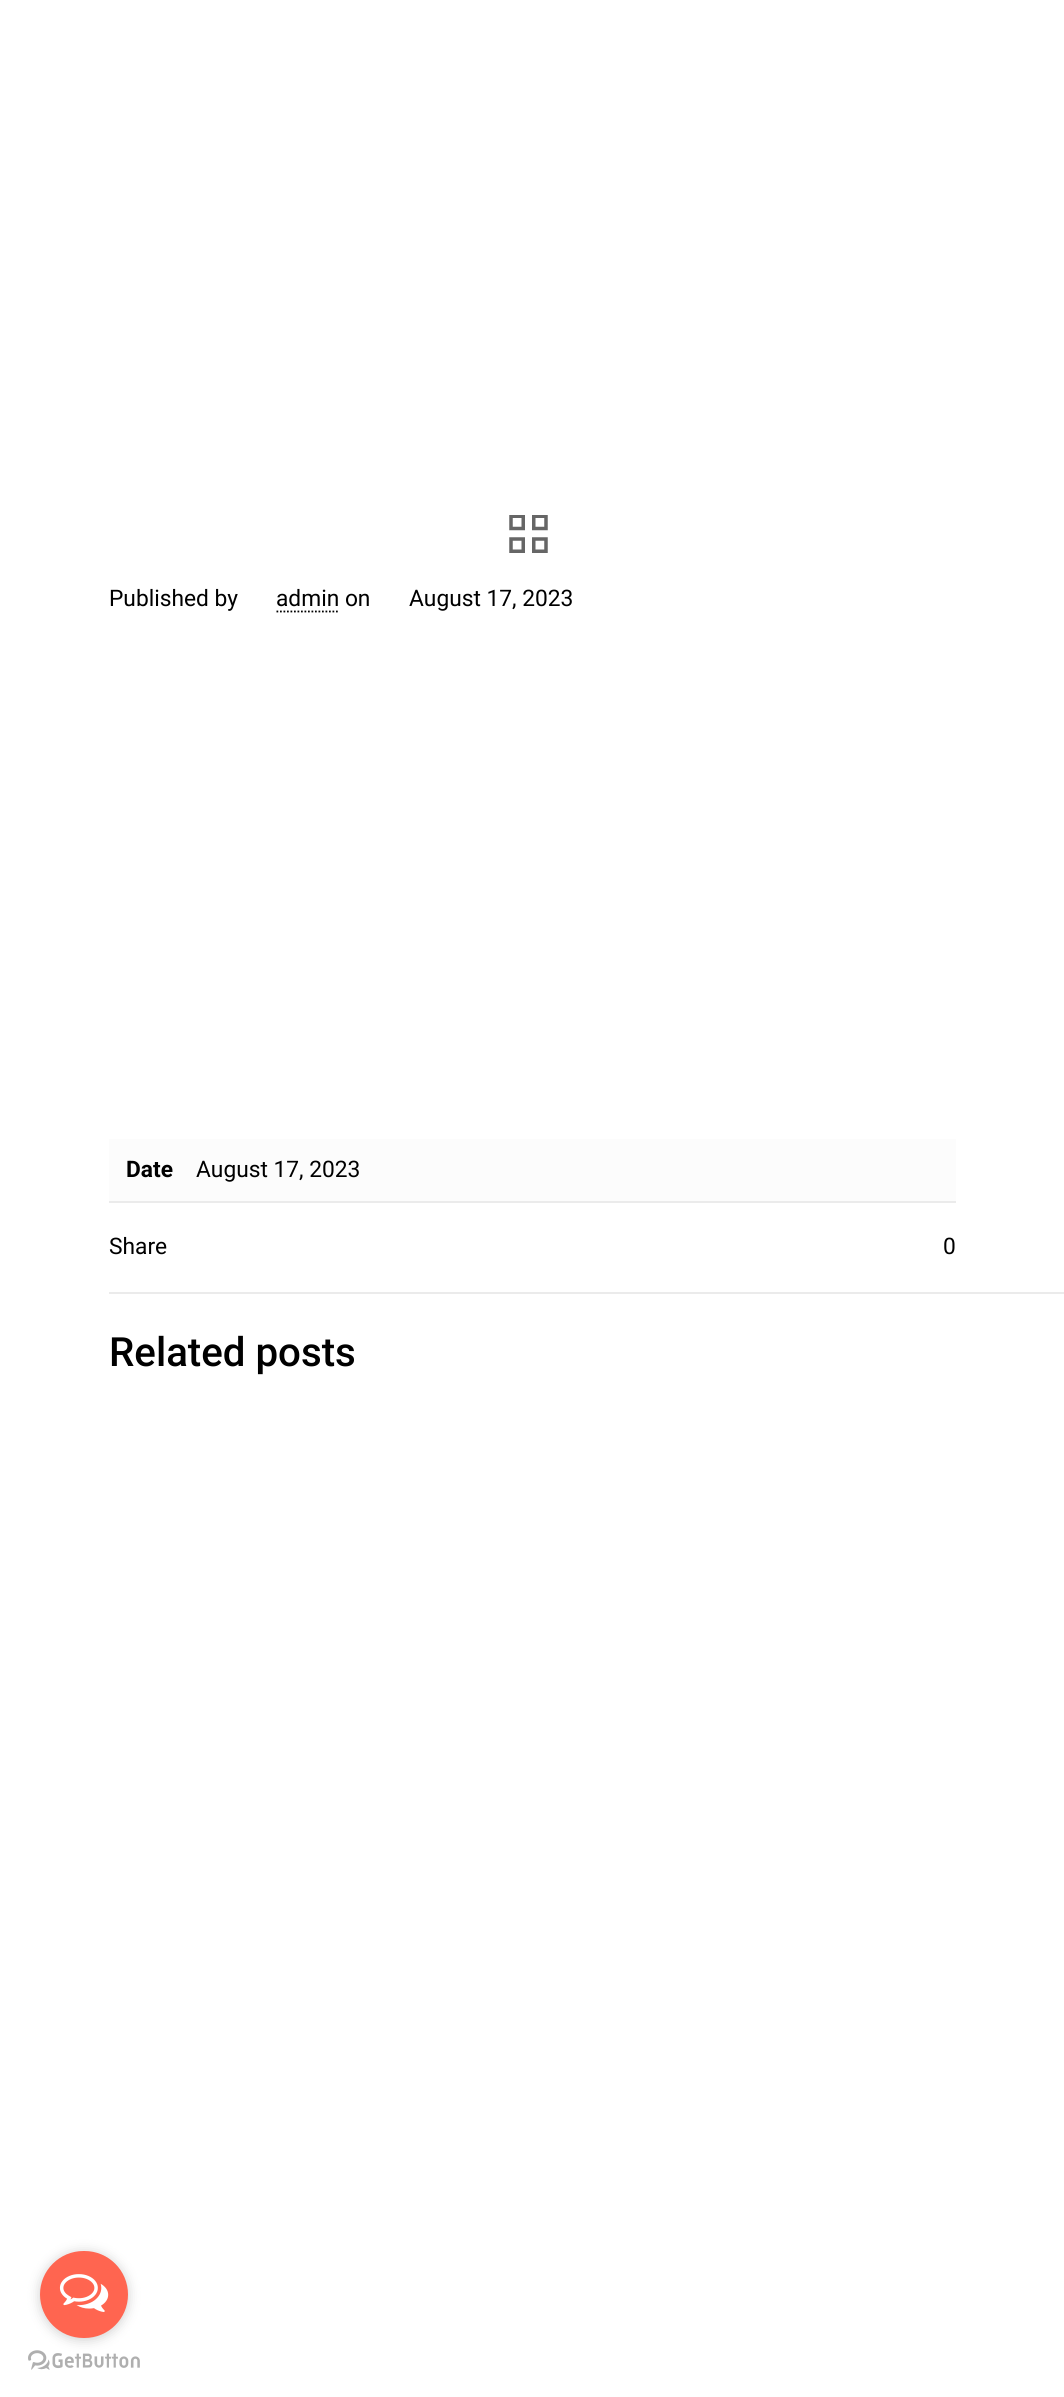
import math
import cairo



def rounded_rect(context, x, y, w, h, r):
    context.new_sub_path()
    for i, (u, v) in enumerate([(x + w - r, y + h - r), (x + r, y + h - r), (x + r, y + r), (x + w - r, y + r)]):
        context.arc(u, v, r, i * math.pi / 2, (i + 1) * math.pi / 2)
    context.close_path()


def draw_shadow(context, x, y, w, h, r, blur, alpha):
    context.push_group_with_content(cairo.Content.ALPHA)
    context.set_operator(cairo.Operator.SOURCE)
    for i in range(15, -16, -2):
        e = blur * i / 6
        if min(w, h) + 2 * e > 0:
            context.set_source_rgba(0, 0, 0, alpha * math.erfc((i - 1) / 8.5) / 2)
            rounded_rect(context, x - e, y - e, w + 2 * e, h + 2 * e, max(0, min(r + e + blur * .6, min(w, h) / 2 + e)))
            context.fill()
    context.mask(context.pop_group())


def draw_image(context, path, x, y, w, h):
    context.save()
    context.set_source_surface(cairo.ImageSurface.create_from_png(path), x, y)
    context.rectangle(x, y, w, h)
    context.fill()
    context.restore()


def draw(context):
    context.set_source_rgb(1, 1, 1)
    context.paint()
    draw_image(context, "images/1.png", 509, 515, 39, 38)
    context.new_path()
    context.move_to(276.5, 611.5)
    context.line_to(339.5, 611.5)
    context.set_source_rgb(0, 0, 0)
    context.set_line_width(1.8)
    context.set_dash([1.75, 1.75])
    context.stroke()
    context.set_source_rgb(252 / 255, 252 / 255, 252 / 255)
    context.rectangle(109, 1139, 847, 62)
    context.fill()
    context.set_source_rgb(235 / 255, 235 / 255, 235 / 255)
    context.rectangle(109, 1201, 847, 2)
    context.fill()
    context.rectangle(109, 1292, 955, 2)
    context.fill()
    draw_image(context, "images/3.png", 28, 2350, 112, 20)
    context.set_source_rgb(136 / 255, 136 / 255, 136 / 255)
    draw_shadow(context, 40, 2252, 88, 88, 44, 6, 0.4)
    context.set_source_rgb(1, 101 / 255, 80 / 255)
    rounded_rect(context, 40, 2251, 88, 87, 43.5)
    context.fill()
    draw_image(context, "images/2.png", 59, 2274, 50, 38)
    context.select_font_face("Roboto")
    context.set_font_size(22.75)
    context.set_source_rgb(0, 0, 0)
    context.move_to(109, 606)
    context.show_text("Published by")
    context.move_to(276, 606)
    context.show_text("admin on")
    context.move_to(409, 606)
    context.show_text("August 17, 2023")
    context.select_font_face("Roboto", cairo.FontSlant.NORMAL, cairo.FontWeight.BOLD)
    context.move_to(126, 1177)
    context.show_text("Date")
    context.select_font_face("Roboto")
    context.move_to(196, 1177)
    context.show_text("August 17, 2023")
    context.move_to(109, 1254)
    context.show_text("Share")
    context.move_to(943, 1254)
    context.show_text("0")
    context.select_font_face("Roboto Medium")
    context.set_font_size(40.25)
    context.move_to(109, 1366)
    context.show_text("Related posts")


surface = cairo.ImageSurface(cairo.Format.RGB24, 1064, 2397)
context = cairo.Context(surface)
options = cairo.FontOptions()
options.set_hint_metrics(cairo.HintMetrics.OFF)
options.set_hint_style(cairo.HintStyle.NONE)
context.set_font_options(options)
context.set_miter_limit(4)
draw(context)
surface.write_to_png("out.png")
